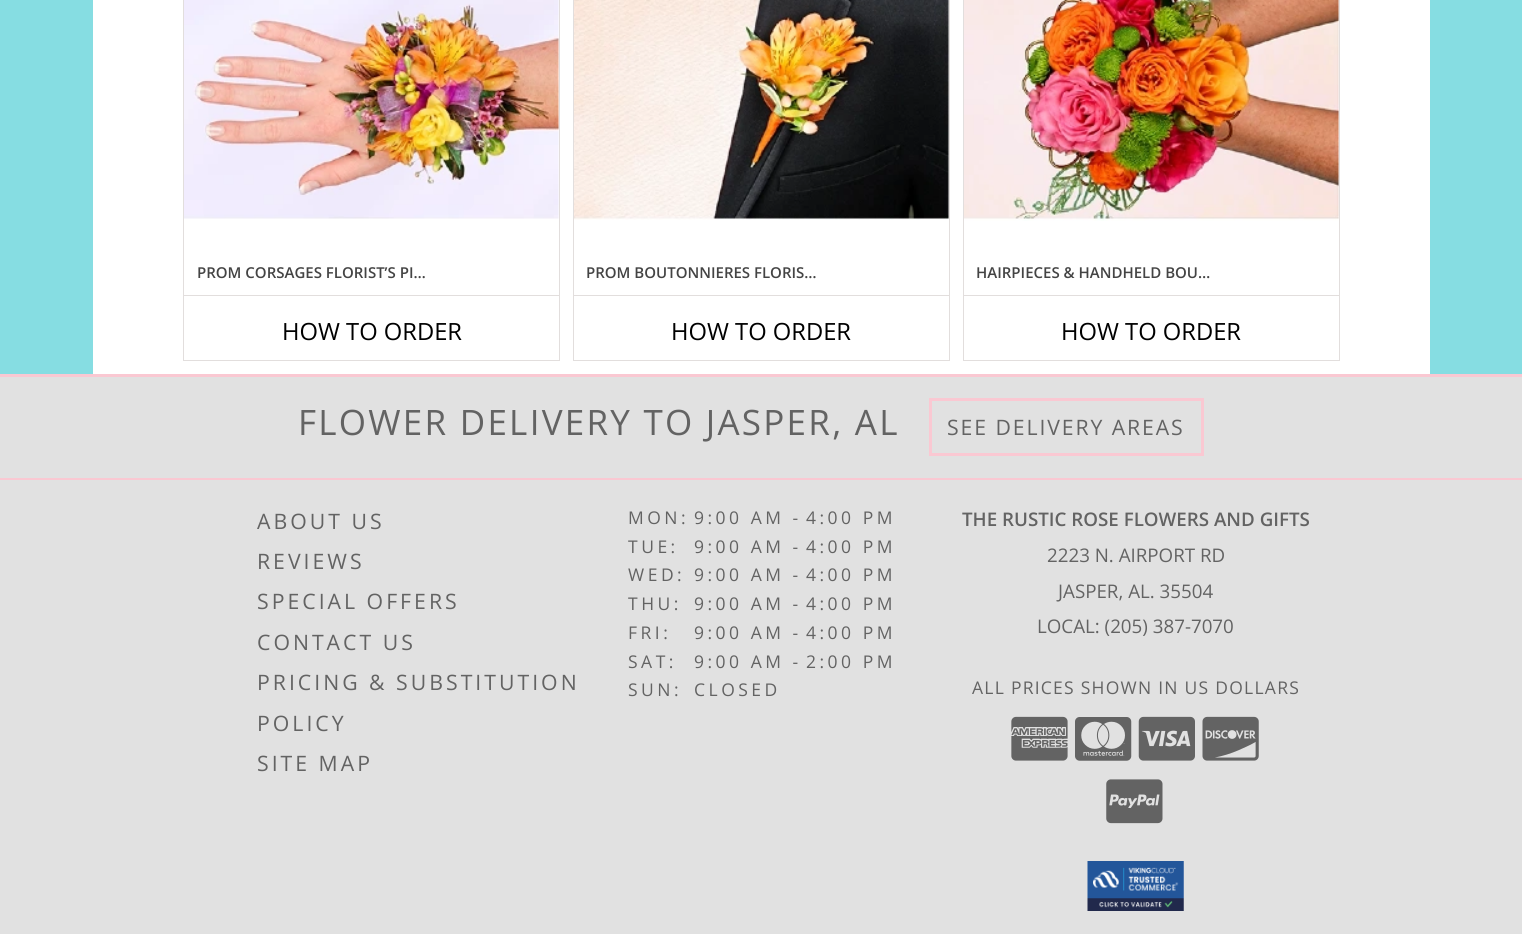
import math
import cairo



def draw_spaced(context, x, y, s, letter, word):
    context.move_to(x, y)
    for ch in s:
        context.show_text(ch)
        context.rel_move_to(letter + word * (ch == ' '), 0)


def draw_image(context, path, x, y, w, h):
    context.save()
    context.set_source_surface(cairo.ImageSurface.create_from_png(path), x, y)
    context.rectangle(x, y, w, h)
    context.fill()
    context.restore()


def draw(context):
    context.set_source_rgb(134 / 255, 221 / 255, 226 / 255)
    context.paint()
    context.set_source_rgb(1, 1, 1)
    context.rectangle(93, 0, 1337, 374)
    context.fill()
    context.set_source_rgb(226 / 255, 222 / 255, 221 / 255)
    context.rectangle(559, 0, 1, 361)
    context.fill()
    context.rectangle(183, 360, 377, 1)
    context.fill()
    context.rectangle(183, 0, 1, 361)
    context.fill()
    draw_image(context, "images/1.png", 184, 0, 375, 219)
    context.rectangle(184, 295, 375, 1)
    context.fill()
    context.rectangle(949, 0, 1, 361)
    context.fill()
    context.rectangle(573, 360, 377, 1)
    context.fill()
    context.rectangle(573, 0, 1, 361)
    context.fill()
    draw_image(context, "images/2.png", 574, 0, 375, 220)
    context.rectangle(574, 295, 375, 1)
    context.fill()
    context.rectangle(1339, 0, 1, 361)
    context.fill()
    context.rectangle(963, 360, 377, 1)
    context.fill()
    context.rectangle(963, 0, 1, 361)
    context.fill()
    draw_image(context, "images/3.png", 964, 0, 375, 221)
    context.rectangle(964, 295, 375, 1)
    context.fill()
    context.set_source_rgb(225 / 255, 225 / 255, 225 / 255)
    context.rectangle(0, 377, 1522, 101)
    context.fill()
    context.set_source_rgb(250 / 255, 200 / 255, 210 / 255)
    context.rectangle(0, 374, 1522, 3)
    context.fill()
    context.rectangle(0, 478, 1522, 2)
    context.fill()
    context.rectangle(930.5, 399.5, 272, 55)
    context.set_line_width(3)
    context.stroke()
    context.set_source_rgb(225 / 255, 225 / 255, 225 / 255)
    context.rectangle(0, 480, 1522, 454)
    context.fill()
    draw_image(context, "images/4.png", 1011, 716, 57, 45)
    draw_image(context, "images/5.png", 1075, 717, 57, 44)
    draw_image(context, "images/6.png", 1138, 716, 57, 45)
    draw_image(context, "images/7.png", 1202, 716, 57, 45)
    draw_image(context, "images/8.png", 1106, 779, 57, 45)
    draw_image(context, "images/9.png", 1087, 861, 97, 50)
    context.select_font_face("Open Sans SemiBold")
    context.set_font_size(15)
    context.set_source_rgb(68 / 255, 68 / 255, 68 / 255)
    context.move_to(197, 278)
    context.show_text("PROM CORSAGES FLORIST’S PI…")
    context.select_font_face("Open Sans")
    context.set_font_size(23.75)
    context.set_source_rgb(0, 0, 0)
    context.move_to(282, 340)
    context.show_text("HOW TO ORDER")
    context.select_font_face("Open Sans SemiBold")
    context.set_font_size(15)
    context.set_source_rgb(68 / 255, 68 / 255, 68 / 255)
    context.move_to(586, 278)
    context.show_text("PROM BOUTONNIERES FLORIS…")
    context.select_font_face("Open Sans")
    context.set_font_size(23.75)
    context.set_source_rgb(0, 0, 0)
    context.move_to(671, 340)
    context.show_text("HOW TO ORDER")
    context.select_font_face("Open Sans SemiBold")
    context.set_font_size(15)
    context.set_source_rgb(68 / 255, 68 / 255, 68 / 255)
    context.move_to(976, 278)
    context.show_text("HAIRPIECES & HANDHELD BOU…")
    context.select_font_face("Open Sans")
    context.set_font_size(23.75)
    context.set_source_rgb(0, 0, 0)
    context.move_to(1061, 340)
    context.show_text("HOW TO ORDER")
    context.set_font_size(35)
    context.set_source_rgb(99 / 255, 99 / 255, 99 / 255)
    draw_spaced(context, 298, 435, "FLOWER DELIVERY TO JASPER, AL", 2.25, 0)
    context.set_font_size(21.25)
    draw_spaced(context, 947, 435, "SEE DELIVERY AREAS", 1.9, 0)
    draw_spaced(context, 257, 529, "ABOUT US", 3, 0)
    draw_spaced(context, 257, 569, "REVIEWS", 3, 0)
    draw_spaced(context, 257, 609, "SPECIAL OFFERS", 3, 0)
    draw_spaced(context, 257, 650, "CONTACT US", 3, 0)
    draw_spaced(context, 257, 690, "PRICING & SUBSTITUTION", 3, 0)
    draw_spaced(context, 257, 731, "POLICY", 3, 0)
    draw_spaced(context, 257, 771, "SITE MAP", 3, 0)
    context.set_font_size(17.5)
    draw_spaced(context, 628, 524, "MON:", 3.5, 0)
    draw_spaced(context, 694, 524, "9:00 AM -", 3.5, 0)
    draw_spaced(context, 806, 524, "4:00 PM", 3.5, 0)
    draw_spaced(context, 628, 553, "TUE:", 3.5, 0)
    draw_spaced(context, 694, 553, "9:00 AM -", 3.5, 0)
    draw_spaced(context, 806, 553, "4:00 PM", 3.5, 0)
    draw_spaced(context, 628, 581, "WED:", 3.5, 0)
    draw_spaced(context, 694, 581, "9:00 AM -", 3.5, 0)
    draw_spaced(context, 806, 581, "4:00 PM", 3.5, 0)
    draw_spaced(context, 628, 610, "THU:", 3.5, 0)
    draw_spaced(context, 694, 610, "9:00 AM -", 3.5, 0)
    draw_spaced(context, 806, 610, "4:00 PM", 3.5, 0)
    draw_spaced(context, 628, 639, "FRI:", 3.5, 0)
    draw_spaced(context, 694, 639, "9:00 AM -", 3.5, 0)
    draw_spaced(context, 806, 639, "4:00 PM", 3.5, 0)
    draw_spaced(context, 628, 668, "SAT:", 3.5, 0)
    draw_spaced(context, 694, 668, "9:00 AM -", 3.5, 0)
    draw_spaced(context, 806, 668, "2:00 PM", 3.5, 0)
    draw_spaced(context, 628, 696, "SUN:", 3.5, 0)
    draw_spaced(context, 694, 696, "CLOSED", 3.5, 0)
    context.select_font_face("Open Sans SemiBold")
    context.set_font_size(18.75)
    context.move_to(962, 526)
    context.show_text("THE RUSTIC ROSE FLOWERS AND GIFTS")
    context.select_font_face("Open Sans")
    context.move_to(1047, 562)
    context.show_text("2223 N. AIRPORT RD")
    context.move_to(1058, 598)
    context.show_text("JASPER, AL. 35504")
    context.move_to(1037, 633)
    context.show_text("LOCAL: (205) 387-7070")
    context.set_font_size(17.5)
    draw_spaced(context, 972, 694, "ALL PRICES SHOWN IN US DOLLARS", 1.25, 0)


surface = cairo.ImageSurface(cairo.Format.RGB24, 1522, 934)
context = cairo.Context(surface)
options = cairo.FontOptions()
options.set_hint_metrics(cairo.HintMetrics.OFF)
options.set_hint_style(cairo.HintStyle.NONE)
context.set_font_options(options)
context.set_miter_limit(4)
draw(context)
surface.write_to_png("out.png")
